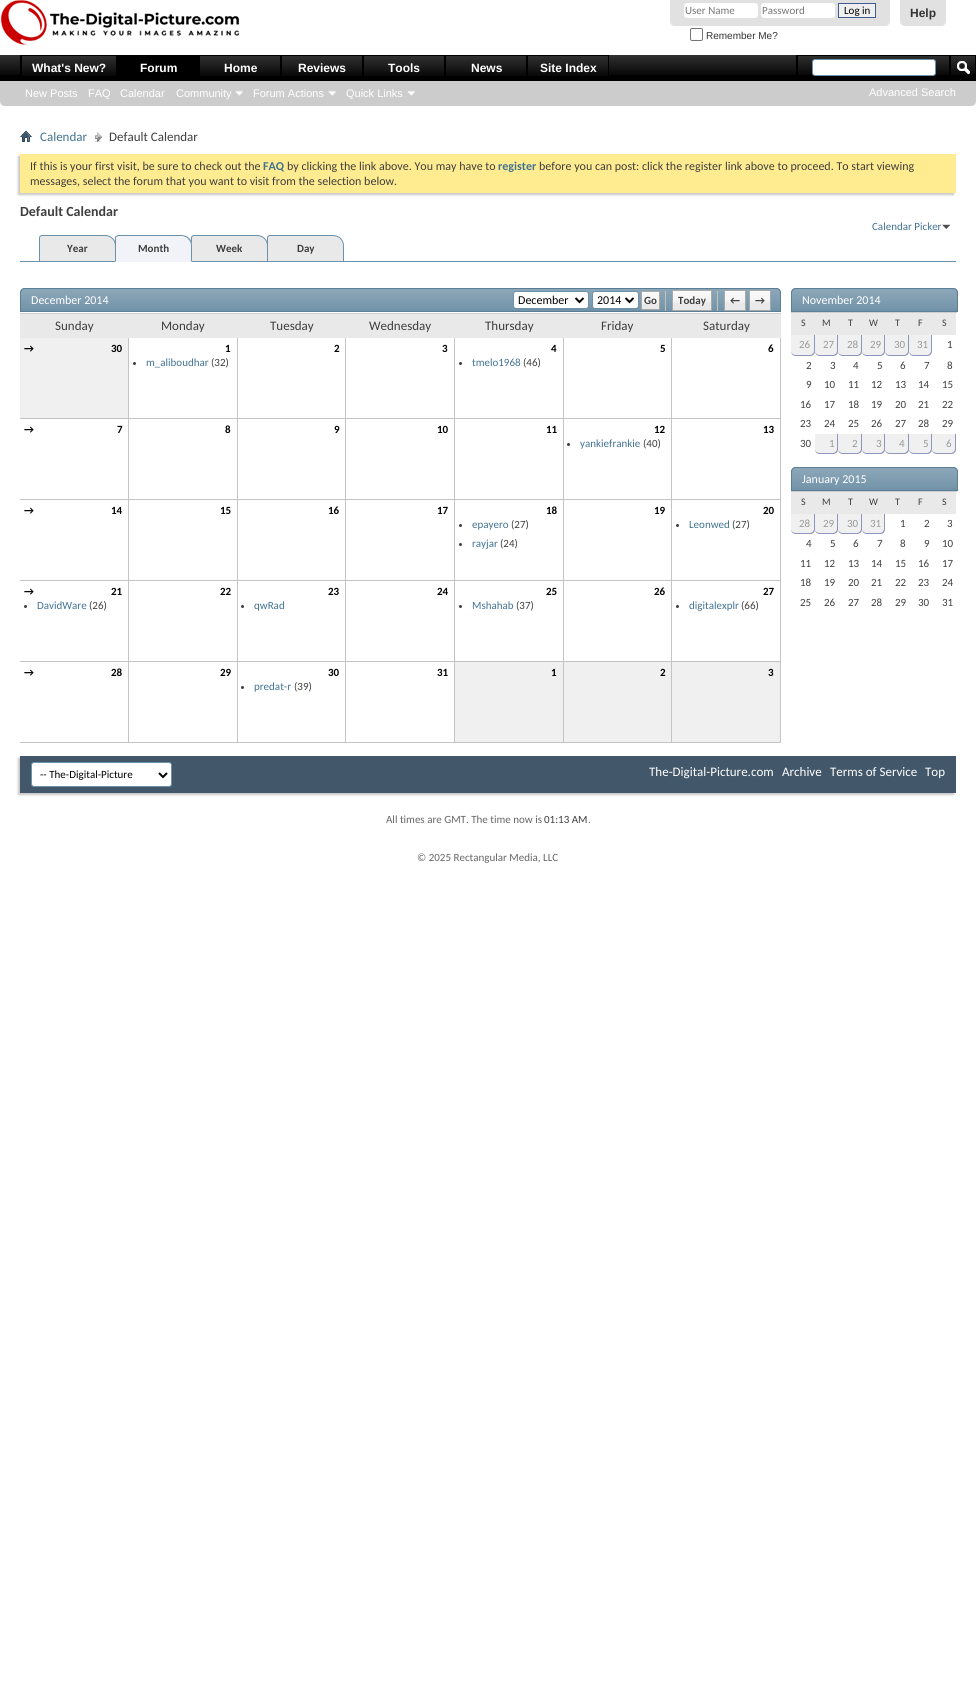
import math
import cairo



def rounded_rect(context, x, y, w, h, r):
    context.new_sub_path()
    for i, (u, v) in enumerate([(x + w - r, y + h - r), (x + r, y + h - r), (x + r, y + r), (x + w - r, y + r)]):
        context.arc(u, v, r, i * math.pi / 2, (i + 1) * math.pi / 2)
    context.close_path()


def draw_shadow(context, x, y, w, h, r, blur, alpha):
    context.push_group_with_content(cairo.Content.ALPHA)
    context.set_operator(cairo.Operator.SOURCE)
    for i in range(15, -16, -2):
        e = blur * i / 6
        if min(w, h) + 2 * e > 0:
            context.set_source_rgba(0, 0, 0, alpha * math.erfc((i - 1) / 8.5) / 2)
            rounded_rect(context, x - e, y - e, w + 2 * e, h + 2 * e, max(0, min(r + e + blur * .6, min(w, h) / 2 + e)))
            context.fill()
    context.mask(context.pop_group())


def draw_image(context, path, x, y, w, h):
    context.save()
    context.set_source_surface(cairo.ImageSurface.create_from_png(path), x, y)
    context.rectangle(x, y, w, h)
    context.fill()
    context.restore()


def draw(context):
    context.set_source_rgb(1, 1, 1)
    context.paint()
    draw_image(context, "images/1.png", 0, 0, 240, 45)
    context.set_source_rgb(225 / 255, 225 / 255, 225 / 255)
    context.new_path()
    context.move_to(670, 0)
    context.line_to(890, 0)
    context.line_to(890, 21)
    context.curve_to(890, 24, 888, 26, 885, 26)
    context.line_to(675, 26)
    context.curve_to(672, 26, 670, 24, 670, 21)
    context.close_path()
    context.fill()
    context.set_source_rgb(1, 1, 1)
    rounded_rect(context, 684, 3, 74, 15, 3)
    context.fill()
    rounded_rect(context, 761, 3, 74, 15, 3)
    context.fill()
    context.set_source_rgb(239 / 255, 239 / 255, 239 / 255)
    context.rectangle(838.5, 3.5, 37, 14)
    context.fill_preserve()
    context.set_source_rgb(65 / 255, 93 / 255, 141 / 255)
    context.set_line_width(1)
    context.stroke()
    rounded_rect(context, 690.5, 28.5, 12, 12, 1.5)
    context.set_source_rgb(118 / 255, 118 / 255, 118 / 255)
    context.stroke()
    context.set_source_rgb(225 / 255, 225 / 255, 225 / 255)
    context.new_path()
    context.move_to(900, 0)
    context.line_to(946, 0)
    context.line_to(946, 21)
    context.curve_to(946, 24, 944, 26, 941, 26)
    context.line_to(905, 26)
    context.curve_to(902, 26, 900, 24, 900, 21)
    context.close_path()
    context.fill()
    context.set_source_rgb(204 / 255, 204 / 255, 204 / 255)
    context.new_path()
    context.move_to(0, 55)
    context.line_to(976, 55)
    context.line_to(976, 101)
    context.curve_to(976, 104, 974, 106, 971, 106)
    context.line_to(5, 106)
    context.curve_to(2, 106, 0, 104, 0, 101)
    context.close_path()
    context.fill()
    context.set_source_rgb(0, 0, 0)
    context.rectangle(0, 55, 976, 25)
    context.fill()
    draw_image(context, "images/2.png", 0, 55, 975, 20)
    context.rectangle(116, 55, 1, 26)
    context.fill()
    context.rectangle(20, 55, 2, 26)
    context.fill()
    context.rectangle(22, 55, 94, 20)
    context.fill()
    draw_image(context, "images/3.png", 22, 56, 94, 20)
    context.rectangle(198, 55, 1, 25)
    context.fill()
    context.rectangle(117, 55, 81, 20)
    context.fill()
    context.rectangle(280, 55, 2, 26)
    context.fill()
    context.rectangle(200, 55, 80, 20)
    context.fill()
    draw_image(context, "images/4.png", 200, 56, 80, 20)
    context.rectangle(199, 55, 1, 26)
    context.fill()
    context.rectangle(362, 55, 2, 26)
    context.fill()
    context.rectangle(282, 55, 80, 20)
    context.fill()
    draw_image(context, "images/4.png", 282, 56, 80, 20)
    context.rectangle(444, 55, 2, 26)
    context.fill()
    context.rectangle(364, 55, 80, 20)
    context.fill()
    draw_image(context, "images/4.png", 364, 56, 80, 20)
    context.rectangle(526, 55, 2, 26)
    context.fill()
    context.rectangle(446, 55, 80, 20)
    context.fill()
    draw_image(context, "images/4.png", 446, 56, 80, 20)
    context.rectangle(608, 55, 1, 26)
    context.fill()
    context.rectangle(528, 55, 80, 20)
    context.fill()
    draw_image(context, "images/4.png", 528, 56, 80, 20)
    context.rectangle(0, 80, 976, 1)
    context.fill()
    draw_image(context, "images/5.png", 235, 90, 8, 6)
    draw_image(context, "images/5.png", 328, 90, 8, 6)
    draw_image(context, "images/5.png", 407, 90, 8, 6)
    context.rectangle(796, 55, 1, 25)
    context.fill()
    context.rectangle(797, 55, 152, 1)
    context.fill()
    context.rectangle(797, 55, 1, 25)
    context.fill()
    context.set_source_rgb(1, 1, 1)
    rounded_rect(context, 812.5, 59.5, 123, 16, 2.5)
    context.fill_preserve()
    context.set_source_rgb(107 / 255, 145 / 255, 171 / 255)
    context.stroke()
    context.set_source_rgb(0, 0, 0)
    context.rectangle(949, 55, 1, 25)
    context.fill()
    context.rectangle(950, 55, 25, 1)
    context.fill()
    context.rectangle(950, 55, 1, 25)
    context.fill()
    draw_image(context, "images/6.png", 957, 61, 13, 14)
    draw_image(context, "images/7.png", 20, 131, 12, 11)
    draw_image(context, "images/8.png", 95, 132, 7, 10)
    context.set_source_rgb(200 / 255, 200 / 255, 200 / 255)
    draw_shadow(context, 18, 156, 936, 39, 0, 1, 1)
    context.set_source_rgb(1, 235 / 255, 144 / 255)
    context.rectangle(20, 154, 936, 39)
    context.fill()
    draw_image(context, "images/9.png", 942, 224, 9, 5)
    context.set_source_rgb(107 / 255, 145 / 255, 171 / 255)
    context.rectangle(20, 261, 936, 1)
    context.fill()
    context.set_source_rgb(233 / 255, 233 / 255, 233 / 255)
    context.new_path()
    context.move_to(42, 235.5)
    context.line_to(105, 235.5)
    context.curve_to(111, 235.5, 115.5, 240, 115.5, 246)
    context.line_to(115.5, 261.5)
    context.line_to(39.5, 261.5)
    context.line_to(39.5, 238)
    context.curve_to(39.5, 236.5, 40.5, 235.5, 42, 235.5)
    context.close_path()
    context.fill_preserve()
    context.set_source_rgb(107 / 255, 145 / 255, 171 / 255)
    context.stroke()
    context.set_source_rgb(233 / 255, 233 / 255, 233 / 255)
    context.new_path()
    context.move_to(194, 235.5)
    context.line_to(257, 235.5)
    context.curve_to(263, 235.5, 267.5, 240, 267.5, 246)
    context.line_to(267.5, 261.5)
    context.line_to(191.5, 261.5)
    context.line_to(191.5, 238)
    context.curve_to(191.5, 236.5, 192.5, 235.5, 194, 235.5)
    context.close_path()
    context.fill_preserve()
    context.set_source_rgb(107 / 255, 145 / 255, 171 / 255)
    context.stroke()
    context.set_source_rgb(241 / 255, 243 / 255, 248 / 255)
    context.new_path()
    context.move_to(118, 235)
    context.line_to(181, 235)
    context.curve_to(187, 235, 192, 240, 192, 246)
    context.line_to(192, 262)
    context.line_to(115, 262)
    context.line_to(115, 238)
    context.curve_to(115, 236.5, 116.5, 235, 118, 235)
    context.close_path()
    context.fill()
    context.set_source_rgb(107 / 255, 145 / 255, 171 / 255)
    context.new_path()
    context.move_to(118, 235)
    context.line_to(116, 236)
    context.line_to(117, 237)
    context.line_to(118, 236)
    context.line_to(183, 236)
    context.curve_to(185, 237, 187, 237, 188, 239)
    context.line_to(189, 238)
    context.curve_to(187, 236, 184, 235, 181, 235)
    context.close_path()
    context.fill()
    context.new_path()
    context.move_to(192, 262)
    context.line_to(192, 246)
    context.curve_to(192, 243, 191, 240, 189, 238)
    context.line_to(188, 239)
    context.curve_to(190, 240.5, 191, 243, 191, 246)
    context.line_to(191, 261)
    context.close_path()
    context.fill()
    context.new_path()
    context.move_to(115, 262)
    context.line_to(116, 261)
    context.line_to(116, 238)
    context.curve_to(116, 237.5, 116, 237, 116.5, 236.5)
    context.line_to(116, 236)
    context.curve_to(115, 236, 115, 237, 115, 238)
    context.close_path()
    context.fill()
    context.set_source_rgb(233 / 255, 233 / 255, 233 / 255)
    context.new_path()
    context.move_to(270, 235.5)
    context.line_to(333, 235.5)
    context.curve_to(339, 235.5, 343.5, 240, 343.5, 246)
    context.line_to(343.5, 261.5)
    context.line_to(267.5, 261.5)
    context.line_to(267.5, 238)
    context.curve_to(267.5, 236.5, 268.5, 235.5, 270, 235.5)
    context.close_path()
    context.fill_preserve()
    context.set_source_rgb(107 / 255, 145 / 255, 171 / 255)
    context.stroke()
    context.set_source_rgb(113 / 255, 146 / 255, 168 / 255)
    context.new_path()
    context.move_to(25, 288)
    context.line_to(776, 288)
    context.curve_to(779, 288, 781, 290, 781, 293)
    context.line_to(781, 312)
    context.line_to(20, 312)
    context.line_to(20, 293)
    context.curve_to(20, 290, 22, 288, 25, 288)
    context.close_path()
    context.fill()
    draw_image(context, "images/10.png", 20, 289, 761, 20)
    context.new_path()
    context.move_to(25, 288.5)
    context.line_to(776, 288.5)
    context.curve_to(778.5, 288.5, 780.5, 290.5, 780.5, 293)
    context.line_to(780.5, 311.5)
    context.line_to(20.5, 311.5)
    context.line_to(20.5, 293)
    context.curve_to(20.5, 290.5, 22.5, 288.5, 25, 288.5)
    context.close_path()
    context.set_source_rgb(90 / 255, 127 / 255, 151 / 255)
    context.stroke()
    context.set_source_rgb(1, 1, 1)
    rounded_rect(context, 513.5, 291.5, 75, 17, 2.5)
    context.fill_preserve()
    context.set_source_rgb(107 / 255, 145 / 255, 171 / 255)
    context.stroke()
    context.new_path()
    context.move_to(575.5, 298)
    context.line_to(579.5, 302)
    context.line_to(583.5, 298)
    context.set_source_rgb(0, 0, 0)
    context.set_line_width(2)
    context.stroke()
    context.set_source_rgb(1, 1, 1)
    rounded_rect(context, 592.5, 291.5, 46, 17, 2.5)
    context.fill_preserve()
    context.set_source_rgb(107 / 255, 145 / 255, 171 / 255)
    context.set_line_width(1)
    context.stroke()
    context.new_path()
    context.move_to(625.5, 298)
    context.line_to(629.5, 302)
    context.line_to(633.5, 298)
    context.set_source_rgb(0, 0, 0)
    context.set_line_width(2)
    context.stroke()
    context.set_source_rgb(233 / 255, 233 / 255, 233 / 255)
    context.rectangle(642, 292, 17, 17)
    context.fill()
    draw_image(context, "images/11.png", 642, 292, 17, 12)
    context.rectangle(641.5, 291.5, 18, 18)
    context.set_source_rgb(168 / 255, 168 / 255, 168 / 255)
    context.set_line_width(1)
    context.stroke()
    context.set_source_rgb(197 / 255, 194 / 255, 184 / 255)
    context.rectangle(665, 291, 1, 20)
    context.fill()
    context.set_source_rgb(233 / 255, 233 / 255, 233 / 255)
    context.rectangle(673, 291, 38, 19)
    context.fill()
    draw_image(context, "images/12.png", 673, 291, 38, 12)
    context.set_source_rgb(197 / 255, 194 / 255, 184 / 255)
    context.rectangle(717, 291, 1, 20)
    context.fill()
    context.set_source_rgb(233 / 255, 233 / 255, 233 / 255)
    context.rectangle(725, 291, 20, 19)
    context.fill()
    draw_image(context, "images/13.png", 725, 291, 20, 12)
    context.rectangle(750, 291, 20, 19)
    context.fill()
    draw_image(context, "images/13.png", 750, 291, 20, 12)
    context.rectangle(672.5, 290.5, 39, 20)
    context.set_source_rgb(168 / 255, 168 / 255, 168 / 255)
    context.stroke()
    context.rectangle(724.5, 290.5, 21, 20)
    context.stroke()
    context.rectangle(749.5, 290.5, 21, 20)
    context.stroke()
    context.set_source_rgb(233 / 255, 233 / 255, 233 / 255)
    context.rectangle(20, 314, 761, 24)
    context.fill()
    context.set_source_rgb(206 / 255, 206 / 255, 206 / 255)
    context.rectangle(20, 313, 761, 1)
    context.fill()
    context.set_source_rgb(240 / 255, 240 / 255, 240 / 255)
    context.rectangle(20, 338, 108, 80)
    context.fill()
    context.set_source_rgb(196 / 255, 196 / 255, 196 / 255)
    context.rectangle(780, 338, 1, 405)
    context.fill()
    context.rectangle(671, 742, 110, 1)
    context.fill()
    context.rectangle(671, 661, 1, 82)
    context.fill()
    context.rectangle(671, 661, 110, 1)
    context.fill()
    context.rectangle(671, 580, 1, 82)
    context.fill()
    context.rectangle(671, 580, 110, 1)
    context.fill()
    context.rectangle(671, 499, 1, 82)
    context.fill()
    context.rectangle(671, 499, 110, 1)
    context.fill()
    context.rectangle(671, 418, 1, 82)
    context.fill()
    context.rectangle(671, 418, 110, 1)
    context.fill()
    context.rectangle(671, 338, 1, 81)
    context.fill()
    context.rectangle(563, 742, 109, 1)
    context.fill()
    context.rectangle(563, 661, 1, 82)
    context.fill()
    context.rectangle(563, 661, 109, 1)
    context.fill()
    context.rectangle(563, 580, 1, 82)
    context.fill()
    context.rectangle(563, 580, 109, 1)
    context.fill()
    context.rectangle(563, 499, 1, 82)
    context.fill()
    context.rectangle(563, 499, 109, 1)
    context.fill()
    context.rectangle(563, 418, 1, 82)
    context.fill()
    context.rectangle(563, 418, 109, 1)
    context.fill()
    context.rectangle(563, 338, 1, 81)
    context.fill()
    context.rectangle(454, 742, 110, 1)
    context.fill()
    context.rectangle(454, 661, 1, 82)
    context.fill()
    context.rectangle(454, 661, 110, 1)
    context.fill()
    context.rectangle(454, 580, 1, 82)
    context.fill()
    context.rectangle(454, 580, 110, 1)
    context.fill()
    context.rectangle(454, 499, 1, 82)
    context.fill()
    context.rectangle(454, 499, 110, 1)
    context.fill()
    context.rectangle(454, 418, 1, 82)
    context.fill()
    context.rectangle(454, 418, 110, 1)
    context.fill()
    context.rectangle(454, 338, 1, 81)
    context.fill()
    context.rectangle(345, 742, 110, 1)
    context.fill()
    context.rectangle(345, 661, 1, 82)
    context.fill()
    context.rectangle(345, 661, 110, 1)
    context.fill()
    context.rectangle(345, 580, 1, 82)
    context.fill()
    context.rectangle(345, 580, 110, 1)
    context.fill()
    context.rectangle(345, 499, 1, 82)
    context.fill()
    context.rectangle(345, 499, 110, 1)
    context.fill()
    context.rectangle(345, 418, 1, 82)
    context.fill()
    context.rectangle(345, 418, 110, 1)
    context.fill()
    context.rectangle(345, 338, 1, 81)
    context.fill()
    context.rectangle(237, 742, 109, 1)
    context.fill()
    context.rectangle(237, 661, 1, 82)
    context.fill()
    context.rectangle(237, 661, 109, 1)
    context.fill()
    context.rectangle(237, 580, 1, 82)
    context.fill()
    context.rectangle(237, 580, 109, 1)
    context.fill()
    context.rectangle(237, 499, 1, 82)
    context.fill()
    context.rectangle(237, 499, 109, 1)
    context.fill()
    context.rectangle(237, 418, 1, 82)
    context.fill()
    context.rectangle(237, 418, 109, 1)
    context.fill()
    context.rectangle(237, 338, 1, 81)
    context.fill()
    context.rectangle(128, 742, 110, 1)
    context.fill()
    context.rectangle(128, 661, 1, 82)
    context.fill()
    context.rectangle(128, 661, 110, 1)
    context.fill()
    context.rectangle(128, 580, 1, 82)
    context.fill()
    context.rectangle(128, 580, 110, 1)
    context.fill()
    context.rectangle(128, 499, 1, 82)
    context.fill()
    context.rectangle(128, 499, 110, 1)
    context.fill()
    context.rectangle(128, 418, 1, 82)
    context.fill()
    context.rectangle(128, 418, 110, 1)
    context.fill()
    context.rectangle(128, 338, 1, 81)
    context.fill()
    context.rectangle(20, 418, 109, 1)
    context.fill()
    context.set_source_rgb(62 / 255, 62 / 255, 62 / 255)
    context.arc(134.5, 363.5, 1.5, 0, 2 * math.pi)
    context.fill()
    context.arc(460.5, 363.5, 1.5, 0, 2 * math.pi)
    context.fill()
    context.set_source_rgb(196 / 255, 196 / 255, 196 / 255)
    context.rectangle(20, 499, 109, 1)
    context.fill()
    context.set_source_rgb(62 / 255, 62 / 255, 62 / 255)
    context.arc(568.5, 444.5, 1.5, 0, 2 * math.pi)
    context.fill()
    context.set_source_rgb(196 / 255, 196 / 255, 196 / 255)
    context.rectangle(20, 580, 109, 1)
    context.fill()
    context.set_source_rgb(62 / 255, 62 / 255, 62 / 255)
    context.arc(460.5, 525.5, 1.5, 0, 2 * math.pi)
    context.fill()
    context.arc(460.5, 544.5, 1.5, 0, 2 * math.pi)
    context.fill()
    context.arc(677.5, 525.5, 1.5, 0, 2 * math.pi)
    context.fill()
    context.set_source_rgb(196 / 255, 196 / 255, 196 / 255)
    context.rectangle(20, 661, 109, 1)
    context.fill()
    context.set_source_rgb(62 / 255, 62 / 255, 62 / 255)
    context.arc(25.5, 606.5, 1.5, 0, 2 * math.pi)
    context.fill()
    context.arc(242.5, 606.5, 1.5, 0, 2 * math.pi)
    context.fill()
    context.arc(460.5, 606.5, 1.5, 0, 2 * math.pi)
    context.fill()
    context.arc(677.5, 606.5, 1.5, 0, 2 * math.pi)
    context.fill()
    context.set_source_rgb(196 / 255, 196 / 255, 196 / 255)
    context.rectangle(20, 742, 109, 1)
    context.fill()
    context.set_source_rgb(62 / 255, 62 / 255, 62 / 255)
    context.arc(242.5, 687.5, 1.5, 0, 2 * math.pi)
    context.fill()
    context.set_source_rgb(240 / 255, 240 / 255, 240 / 255)
    context.rectangle(455, 662, 108, 80)
    context.fill()
    context.rectangle(564, 662, 107, 80)
    context.fill()
    context.rectangle(672, 662, 108, 80)
    context.fill()
    context.set_source_rgb(113 / 255, 146 / 255, 168 / 255)
    context.new_path()
    context.move_to(796, 288)
    context.line_to(953, 288)
    context.curve_to(956, 288, 958, 290, 958, 293)
    context.line_to(958, 312)
    context.line_to(791, 312)
    context.line_to(791, 293)
    context.curve_to(791, 290, 793, 288, 796, 288)
    context.close_path()
    context.fill()
    draw_image(context, "images/14.png", 791, 289, 167, 20)
    context.new_path()
    context.move_to(796, 288.5)
    context.line_to(953, 288.5)
    context.curve_to(955.5, 288.5, 957.5, 290.5, 957.5, 293)
    context.line_to(957.5, 311.5)
    context.line_to(791.5, 311.5)
    context.line_to(791.5, 293)
    context.curve_to(791.5, 290.5, 793.5, 288.5, 796, 288.5)
    context.close_path()
    context.set_source_rgb(90 / 255, 127 / 255, 151 / 255)
    context.stroke()
    context.set_source_rgb(233 / 255, 233 / 255, 233 / 255)
    context.rectangle(791, 313, 165, 22)
    context.fill()
    context.set_source_rgb(206 / 255, 206 / 255, 206 / 255)
    context.rectangle(791, 312, 166, 1)
    context.fill()
    context.set_source_rgb(240 / 255, 240 / 255, 240 / 255)
    context.new_path()
    context.move_to(791, 335)
    context.line_to(815, 335)
    context.line_to(815, 351)
    context.curve_to(815, 354, 813, 356, 810, 356)
    context.line_to(796, 356)
    context.curve_to(793, 356, 791, 354, 791, 351)
    context.close_path()
    context.fill()
    context.set_source_rgb(143 / 255, 149 / 255, 191 / 255)
    context.set_fill_rule(cairo.FillRule.EVEN_ODD)
    context.new_path()
    context.move_to(791, 335)
    context.line_to(815, 335)
    context.line_to(815, 351)
    context.curve_to(815, 354, 813, 356, 810, 356)
    context.line_to(796, 356)
    context.curve_to(793, 356, 791, 354, 791, 351)
    context.close_path()
    context.move_to(791, 335)
    context.line_to(814, 335)
    context.line_to(814, 351)
    context.curve_to(814, 353, 812, 355, 810, 355)
    context.line_to(796, 355)
    context.curve_to(793, 355, 791, 353, 791, 351)
    context.close_path()
    context.fill()
    context.set_source_rgb(240 / 255, 240 / 255, 240 / 255)
    context.new_path()
    context.move_to(815, 335)
    context.line_to(838, 335)
    context.line_to(838, 351)
    context.curve_to(838, 354, 836, 356, 833, 356)
    context.line_to(820, 356)
    context.curve_to(817, 356, 815, 354, 815, 351)
    context.close_path()
    context.fill()
    context.set_source_rgb(143 / 255, 149 / 255, 191 / 255)
    context.new_path()
    context.move_to(815, 335)
    context.line_to(838, 335)
    context.line_to(838, 351)
    context.curve_to(838, 354, 836, 356, 833, 356)
    context.line_to(820, 356)
    context.curve_to(817, 356, 815, 354, 815, 351)
    context.close_path()
    context.move_to(815, 335)
    context.line_to(837, 335)
    context.line_to(837, 351)
    context.curve_to(837, 353, 835, 355, 833, 355)
    context.line_to(820, 355)
    context.curve_to(817, 355, 815, 353, 815, 351)
    context.close_path()
    context.fill()
    context.set_source_rgb(240 / 255, 240 / 255, 240 / 255)
    context.new_path()
    context.move_to(838, 335)
    context.line_to(862, 335)
    context.line_to(862, 351)
    context.curve_to(862, 354, 860, 356, 857, 356)
    context.line_to(843, 356)
    context.curve_to(840, 356, 838, 354, 838, 351)
    context.close_path()
    context.fill()
    context.set_source_rgb(143 / 255, 149 / 255, 191 / 255)
    context.new_path()
    context.move_to(838, 335)
    context.line_to(862, 335)
    context.line_to(862, 351)
    context.curve_to(862, 354, 860, 356, 857, 356)
    context.line_to(843, 356)
    context.curve_to(840, 356, 838, 354, 838, 351)
    context.close_path()
    context.move_to(838, 335)
    context.line_to(861, 335)
    context.line_to(861, 351)
    context.curve_to(861, 353, 859, 355, 857, 355)
    context.line_to(843, 355)
    context.curve_to(840, 355, 838, 353, 838, 351)
    context.close_path()
    context.fill()
    context.set_source_rgb(240 / 255, 240 / 255, 240 / 255)
    context.new_path()
    context.move_to(862, 335)
    context.line_to(885, 335)
    context.line_to(885, 351)
    context.curve_to(885, 354, 883, 356, 880, 356)
    context.line_to(867, 356)
    context.curve_to(864, 356, 862, 354, 862, 351)
    context.close_path()
    context.fill()
    context.set_source_rgb(143 / 255, 149 / 255, 191 / 255)
    context.new_path()
    context.move_to(862, 335)
    context.line_to(885, 335)
    context.line_to(885, 351)
    context.curve_to(885, 354, 883, 356, 880, 356)
    context.line_to(867, 356)
    context.curve_to(864, 356, 862, 354, 862, 351)
    context.close_path()
    context.move_to(862, 335)
    context.line_to(884, 335)
    context.line_to(884, 351)
    context.curve_to(884, 353, 882, 355, 880, 355)
    context.line_to(867, 355)
    context.curve_to(864, 355, 862, 353, 862, 351)
    context.close_path()
    context.fill()
    context.set_source_rgb(240 / 255, 240 / 255, 240 / 255)
    context.new_path()
    context.move_to(885, 335)
    context.line_to(909, 335)
    context.line_to(909, 351)
    context.curve_to(909, 354, 907, 356, 904, 356)
    context.line_to(890, 356)
    context.curve_to(887, 356, 885, 354, 885, 351)
    context.close_path()
    context.fill()
    context.set_source_rgb(143 / 255, 149 / 255, 191 / 255)
    context.new_path()
    context.move_to(885, 335)
    context.line_to(909, 335)
    context.line_to(909, 351)
    context.curve_to(909, 354, 907, 356, 904, 356)
    context.line_to(890, 356)
    context.curve_to(887, 356, 885, 354, 885, 351)
    context.close_path()
    context.move_to(885, 335)
    context.line_to(908, 335)
    context.line_to(908, 351)
    context.curve_to(908, 353, 906, 355, 904, 355)
    context.line_to(890, 355)
    context.curve_to(887, 355, 885, 353, 885, 351)
    context.close_path()
    context.fill()
    context.set_source_rgb(240 / 255, 240 / 255, 240 / 255)
    context.new_path()
    context.move_to(909, 335)
    context.line_to(932, 335)
    context.line_to(932, 351)
    context.curve_to(932, 354, 930, 356, 927, 356)
    context.line_to(914, 356)
    context.curve_to(911, 356, 909, 354, 909, 351)
    context.close_path()
    context.fill()
    context.set_source_rgb(143 / 255, 149 / 255, 191 / 255)
    context.new_path()
    context.move_to(909, 335)
    context.line_to(932, 335)
    context.line_to(932, 351)
    context.curve_to(932, 354, 930, 356, 927, 356)
    context.line_to(914, 356)
    context.curve_to(911, 356, 909, 354, 909, 351)
    context.close_path()
    context.move_to(909, 335)
    context.line_to(931, 335)
    context.line_to(931, 351)
    context.curve_to(931, 353, 929, 355, 927, 355)
    context.line_to(914, 355)
    context.curve_to(911, 355, 909, 353, 909, 351)
    context.close_path()
    context.fill()
    context.set_source_rgb(240 / 255, 240 / 255, 240 / 255)
    context.new_path()
    context.move_to(815, 434)
    context.line_to(838, 434)
    context.line_to(838, 449)
    context.curve_to(838, 452, 836, 454, 833, 454)
    context.line_to(820, 454)
    context.curve_to(817, 454, 815, 452, 815, 449)
    context.close_path()
    context.fill()
    context.set_source_rgb(143 / 255, 149 / 255, 191 / 255)
    context.new_path()
    context.move_to(815, 434)
    context.line_to(838, 434)
    context.line_to(838, 449)
    context.curve_to(838, 452, 836, 454, 833, 454)
    context.line_to(820, 454)
    context.curve_to(817, 454, 815, 452, 815, 449)
    context.close_path()
    context.move_to(815, 434)
    context.line_to(837, 434)
    context.line_to(837, 449)
    context.curve_to(837, 451, 835, 453, 833, 453)
    context.line_to(820, 453)
    context.curve_to(817, 453, 815, 451, 815, 449)
    context.close_path()
    context.fill()
    context.set_source_rgb(240 / 255, 240 / 255, 240 / 255)
    context.new_path()
    context.move_to(838, 434)
    context.line_to(862, 434)
    context.line_to(862, 449)
    context.curve_to(862, 452, 860, 454, 857, 454)
    context.line_to(843, 454)
    context.curve_to(840, 454, 838, 452, 838, 449)
    context.close_path()
    context.fill()
    context.set_source_rgb(143 / 255, 149 / 255, 191 / 255)
    context.new_path()
    context.move_to(838, 434)
    context.line_to(862, 434)
    context.line_to(862, 449)
    context.curve_to(862, 452, 860, 454, 857, 454)
    context.line_to(843, 454)
    context.curve_to(840, 454, 838, 452, 838, 449)
    context.close_path()
    context.move_to(838, 434)
    context.line_to(861, 434)
    context.line_to(861, 449)
    context.curve_to(861, 451, 859, 453, 857, 453)
    context.line_to(843, 453)
    context.curve_to(840, 453, 838, 451, 838, 449)
    context.close_path()
    context.fill()
    context.set_source_rgb(240 / 255, 240 / 255, 240 / 255)
    context.new_path()
    context.move_to(862, 434)
    context.line_to(885, 434)
    context.line_to(885, 449)
    context.curve_to(885, 452, 883, 454, 880, 454)
    context.line_to(867, 454)
    context.curve_to(864, 454, 862, 452, 862, 449)
    context.close_path()
    context.fill()
    context.set_source_rgb(143 / 255, 149 / 255, 191 / 255)
    context.new_path()
    context.move_to(862, 434)
    context.line_to(885, 434)
    context.line_to(885, 449)
    context.curve_to(885, 452, 883, 454, 880, 454)
    context.line_to(867, 454)
    context.curve_to(864, 454, 862, 452, 862, 449)
    context.close_path()
    context.move_to(862, 434)
    context.line_to(884, 434)
    context.line_to(884, 449)
    context.curve_to(884, 451, 882, 453, 880, 453)
    context.line_to(867, 453)
    context.curve_to(864, 453, 862, 451, 862, 449)
    context.close_path()
    context.fill()
    context.set_source_rgb(240 / 255, 240 / 255, 240 / 255)
    context.new_path()
    context.move_to(885, 434)
    context.line_to(909, 434)
    context.line_to(909, 449)
    context.curve_to(909, 452, 907, 454, 904, 454)
    context.line_to(890, 454)
    context.curve_to(887, 454, 885, 452, 885, 449)
    context.close_path()
    context.fill()
    context.set_source_rgb(143 / 255, 149 / 255, 191 / 255)
    context.new_path()
    context.move_to(885, 434)
    context.line_to(909, 434)
    context.line_to(909, 449)
    context.curve_to(909, 452, 907, 454, 904, 454)
    context.line_to(890, 454)
    context.curve_to(887, 454, 885, 452, 885, 449)
    context.close_path()
    context.move_to(885, 434)
    context.line_to(908, 434)
    context.line_to(908, 449)
    context.curve_to(908, 451, 906, 453, 904, 453)
    context.line_to(890, 453)
    context.curve_to(887, 453, 885, 451, 885, 449)
    context.close_path()
    context.fill()
    context.set_source_rgb(240 / 255, 240 / 255, 240 / 255)
    context.new_path()
    context.move_to(909, 434)
    context.line_to(932, 434)
    context.line_to(932, 449)
    context.curve_to(932, 452, 930, 454, 927, 454)
    context.line_to(914, 454)
    context.curve_to(911, 454, 909, 452, 909, 449)
    context.close_path()
    context.fill()
    context.set_source_rgb(143 / 255, 149 / 255, 191 / 255)
    context.new_path()
    context.move_to(909, 434)
    context.line_to(932, 434)
    context.line_to(932, 449)
    context.curve_to(932, 452, 930, 454, 927, 454)
    context.line_to(914, 454)
    context.curve_to(911, 454, 909, 452, 909, 449)
    context.close_path()
    context.move_to(909, 434)
    context.line_to(931, 434)
    context.line_to(931, 449)
    context.curve_to(931, 451, 929, 453, 927, 453)
    context.line_to(914, 453)
    context.curve_to(911, 453, 909, 451, 909, 449)
    context.close_path()
    context.fill()
    context.set_source_rgb(240 / 255, 240 / 255, 240 / 255)
    context.new_path()
    context.move_to(932, 434)
    context.line_to(956, 434)
    context.line_to(956, 449)
    context.curve_to(956, 452, 954, 454, 951, 454)
    context.line_to(937, 454)
    context.curve_to(934, 454, 932, 452, 932, 449)
    context.close_path()
    context.fill()
    context.set_source_rgb(143 / 255, 149 / 255, 191 / 255)
    context.new_path()
    context.move_to(932, 434)
    context.line_to(956, 434)
    context.line_to(956, 449)
    context.curve_to(956, 452, 954, 454, 951, 454)
    context.line_to(937, 454)
    context.curve_to(934, 454, 932, 452, 932, 449)
    context.close_path()
    context.move_to(932, 434)
    context.line_to(955, 434)
    context.line_to(955, 449)
    context.curve_to(955, 451, 953, 453, 951, 453)
    context.line_to(937, 453)
    context.curve_to(934, 453, 932, 451, 932, 449)
    context.close_path()
    context.fill()
    context.set_source_rgb(113 / 255, 146 / 255, 168 / 255)
    context.new_path()
    context.move_to(796, 467)
    context.line_to(953, 467)
    context.curve_to(956, 467, 958, 469, 958, 472)
    context.line_to(958, 491)
    context.line_to(791, 491)
    context.line_to(791, 472)
    context.curve_to(791, 469, 793, 467, 796, 467)
    context.close_path()
    context.fill()
    draw_image(context, "images/14.png", 791, 468, 167, 20)
    context.new_path()
    context.move_to(796, 467.5)
    context.line_to(953, 467.5)
    context.curve_to(955.5, 467.5, 957.5, 469.5, 957.5, 472)
    context.line_to(957.5, 490.5)
    context.line_to(791.5, 490.5)
    context.line_to(791.5, 472)
    context.curve_to(791.5, 469.5, 793.5, 467.5, 796, 467.5)
    context.close_path()
    context.set_source_rgb(90 / 255, 127 / 255, 151 / 255)
    context.stroke()
    context.set_source_rgb(233 / 255, 233 / 255, 233 / 255)
    context.rectangle(791, 492, 165, 22)
    context.fill()
    context.set_source_rgb(206 / 255, 206 / 255, 206 / 255)
    context.rectangle(791, 491, 166, 1)
    context.fill()
    context.set_source_rgb(240 / 255, 240 / 255, 240 / 255)
    context.new_path()
    context.move_to(791, 514)
    context.line_to(815, 514)
    context.line_to(815, 529)
    context.curve_to(815, 532, 813, 534, 810, 534)
    context.line_to(796, 534)
    context.curve_to(793, 534, 791, 532, 791, 529)
    context.close_path()
    context.fill()
    context.set_source_rgb(143 / 255, 149 / 255, 191 / 255)
    context.new_path()
    context.move_to(791, 514)
    context.line_to(815, 514)
    context.line_to(815, 529)
    context.curve_to(815, 532, 813, 534, 810, 534)
    context.line_to(796, 534)
    context.curve_to(793, 534, 791, 532, 791, 529)
    context.close_path()
    context.move_to(791, 514)
    context.line_to(814, 514)
    context.line_to(814, 529)
    context.curve_to(814, 531, 812, 533, 810, 533)
    context.line_to(796, 533)
    context.curve_to(793, 533, 791, 531, 791, 529)
    context.close_path()
    context.fill()
    context.set_source_rgb(240 / 255, 240 / 255, 240 / 255)
    context.new_path()
    context.move_to(815, 514)
    context.line_to(838, 514)
    context.line_to(838, 529)
    context.curve_to(838, 532, 836, 534, 833, 534)
    context.line_to(820, 534)
    context.curve_to(817, 534, 815, 532, 815, 529)
    context.close_path()
    context.fill()
    context.set_source_rgb(143 / 255, 149 / 255, 191 / 255)
    context.new_path()
    context.move_to(815, 514)
    context.line_to(838, 514)
    context.line_to(838, 529)
    context.curve_to(838, 532, 836, 534, 833, 534)
    context.line_to(820, 534)
    context.curve_to(817, 534, 815, 532, 815, 529)
    context.close_path()
    context.move_to(815, 514)
    context.line_to(837, 514)
    context.line_to(837, 529)
    context.curve_to(837, 531, 835, 533, 833, 533)
    context.line_to(820, 533)
    context.curve_to(817, 533, 815, 531, 815, 529)
    context.close_path()
    context.fill()
    context.set_source_rgb(240 / 255, 240 / 255, 240 / 255)
    context.new_path()
    context.move_to(838, 514)
    context.line_to(862, 514)
    context.line_to(862, 529)
    context.curve_to(862, 532, 860, 534, 857, 534)
    context.line_to(843, 534)
    context.curve_to(840, 534, 838, 532, 838, 529)
    context.close_path()
    context.fill()
    context.set_source_rgb(143 / 255, 149 / 255, 191 / 255)
    context.new_path()
    context.move_to(838, 514)
    context.line_to(862, 514)
    context.line_to(862, 529)
    context.curve_to(862, 532, 860, 534, 857, 534)
    context.line_to(843, 534)
    context.curve_to(840, 534, 838, 532, 838, 529)
    context.close_path()
    context.move_to(838, 514)
    context.line_to(861, 514)
    context.line_to(861, 529)
    context.curve_to(861, 531, 859, 533, 857, 533)
    context.line_to(843, 533)
    context.curve_to(840, 533, 838, 531, 838, 529)
    context.close_path()
    context.fill()
    context.set_source_rgb(240 / 255, 240 / 255, 240 / 255)
    context.new_path()
    context.move_to(862, 514)
    context.line_to(885, 514)
    context.line_to(885, 529)
    context.curve_to(885, 532, 883, 534, 880, 534)
    context.line_to(867, 534)
    context.curve_to(864, 534, 862, 532, 862, 529)
    context.close_path()
    context.fill()
    context.set_source_rgb(143 / 255, 149 / 255, 191 / 255)
    context.new_path()
    context.move_to(862, 514)
    context.line_to(885, 514)
    context.line_to(885, 529)
    context.curve_to(885, 532, 883, 534, 880, 534)
    context.line_to(867, 534)
    context.curve_to(864, 534, 862, 532, 862, 529)
    context.close_path()
    context.move_to(862, 514)
    context.line_to(884, 514)
    context.line_to(884, 529)
    context.curve_to(884, 531, 882, 533, 880, 533)
    context.line_to(867, 533)
    context.curve_to(864, 533, 862, 531, 862, 529)
    context.close_path()
    context.fill()
    context.set_source_rgb(200 / 255, 200 / 255, 200 / 255)
    draw_shadow(context, 18, 758, 936, 37, 0, 1, 1)
    context.set_source_rgb(66 / 255, 87 / 255, 105 / 255)
    context.rectangle(20, 756, 936, 37)
    context.fill()
    context.set_source_rgb(1, 1, 1)
    rounded_rect(context, 31.5, 762.5, 140, 24, 2.5)
    context.fill_preserve()
    context.set_source_rgb(107 / 255, 145 / 255, 171 / 255)
    context.stroke()
    context.new_path()
    context.move_to(159, 773)
    context.line_to(163, 777)
    context.line_to(167, 773)
    context.set_source_rgb(0, 0, 0)
    context.set_line_width(2)
    context.stroke()
    context.select_font_face("Carlito")
    context.set_font_size(11)
    context.set_source_rgb(119 / 255, 119 / 255, 119 / 255)
    context.move_to(685, 14)
    context.show_text("User Name")
    context.move_to(762, 14)
    context.show_text("Password")
    context.set_source_rgb(0, 0, 0)
    context.move_to(844, 14)
    context.show_text("Log in")
    context.select_font_face("Liberation Sans")
    context.set_font_size(10)
    context.set_source_rgb(51 / 255, 51 / 255, 51 / 255)
    context.move_to(706, 39)
    context.show_text("Remember Me?")
    context.select_font_face("Liberation Sans", cairo.FontSlant.NORMAL, cairo.FontWeight.BOLD)
    context.set_font_size(12)
    context.move_to(910, 17)
    context.show_text("Help")
    context.set_source_rgb(1, 1, 1)
    context.move_to(32, 72)
    context.show_text("What's New?")
    context.move_to(140, 72)
    context.show_text("Forum")
    context.move_to(224, 72)
    context.show_text("Home")
    context.move_to(298, 72)
    context.show_text("Reviews")
    context.move_to(388, 72)
    context.show_text("Tools")
    context.move_to(471, 72)
    context.show_text("News")
    context.move_to(540, 72)
    context.show_text("Site Index")
    context.select_font_face("Liberation Sans")
    context.set_font_size(11)
    context.move_to(25, 97)
    context.show_text("New Posts")
    context.move_to(88, 97)
    context.show_text("FAQ")
    context.move_to(120, 97)
    context.show_text("Calendar")
    context.move_to(176, 97)
    context.show_text("Community")
    context.move_to(253, 97)
    context.show_text("Forum Actions")
    context.move_to(346, 97)
    context.show_text("Quick Links")
    context.move_to(869, 96)
    context.show_text("Advanced Search")
    context.select_font_face("Carlito")
    context.set_font_size(13)
    context.set_source_rgb(65 / 255, 115 / 255, 148 / 255)
    context.move_to(40, 141)
    context.show_text("Calendar")
    context.set_source_rgb(62 / 255, 62 / 255, 62 / 255)
    context.move_to(109, 141)
    context.show_text("Default Calendar")
    context.set_font_size(12)
    context.move_to(30, 170)
    context.show_text("If this is your first visit, be sure to check out the")
    context.select_font_face("Carlito", cairo.FontSlant.NORMAL, cairo.FontWeight.BOLD)
    context.set_source_rgb(65 / 255, 115 / 255, 148 / 255)
    context.move_to(263, 170)
    context.show_text("FAQ")
    context.select_font_face("Carlito")
    context.set_source_rgb(62 / 255, 62 / 255, 62 / 255)
    context.move_to(287, 170)
    context.show_text("by clicking the link above. You may have to")
    context.select_font_face("Carlito", cairo.FontSlant.NORMAL, cairo.FontWeight.BOLD)
    context.set_source_rgb(65 / 255, 115 / 255, 148 / 255)
    context.move_to(498, 170)
    context.show_text("register")
    context.select_font_face("Carlito")
    context.set_source_rgb(62 / 255, 62 / 255, 62 / 255)
    context.move_to(539, 170)
    context.show_text("before you can post: click the register link above to proceed. To start viewing")
    context.move_to(30, 185)
    context.show_text("messages, select the forum that you want to visit from the selection below.")
    context.select_font_face("Carlito", cairo.FontSlant.NORMAL, cairo.FontWeight.BOLD)
    context.set_font_size(14)
    context.move_to(20, 216)
    context.show_text("Default Calendar")
    context.select_font_face("Carlito")
    context.set_font_size(11)
    context.set_source_rgb(65 / 255, 115 / 255, 148 / 255)
    context.move_to(872, 230)
    context.show_text("Calendar Picker")
    context.select_font_face("Carlito", cairo.FontSlant.NORMAL, cairo.FontWeight.BOLD)
    context.set_source_rgb(62 / 255, 62 / 255, 62 / 255)
    context.move_to(67, 252)
    context.show_text("Year")
    context.move_to(138, 252)
    context.show_text("Month")
    context.move_to(216, 252)
    context.show_text("Week")
    context.move_to(297, 252)
    context.show_text("Day")
    context.select_font_face("Carlito")
    context.set_font_size(12)
    context.set_source_rgb(1, 1, 1)
    context.move_to(31, 304)
    context.show_text("December 2014")
    context.set_source_rgb(0, 0, 0)
    context.move_to(518, 304)
    context.show_text("December")
    context.move_to(597, 304)
    context.show_text("2014")
    context.select_font_face("Carlito", cairo.FontSlant.NORMAL, cairo.FontWeight.BOLD)
    context.set_font_size(11)
    context.set_source_rgb(62 / 255, 62 / 255, 62 / 255)
    context.move_to(644, 304)
    context.show_text("Go")
    context.move_to(678, 304)
    context.show_text("Today")
    context.move_to(730, 304)
    context.show_text("←")
    context.move_to(755, 304)
    context.show_text("→")
    context.select_font_face("Carlito")
    context.set_font_size(13)
    context.move_to(55, 330)
    context.show_text("Sunday")
    context.move_to(161, 330)
    context.show_text("Monday")
    context.move_to(270, 330)
    context.show_text("Tuesday")
    context.move_to(369, 330)
    context.show_text("Wednesday")
    context.move_to(485, 330)
    context.show_text("Thursday")
    context.move_to(601, 330)
    context.show_text("Friday")
    context.move_to(703, 330)
    context.show_text("Saturday")
    context.select_font_face("Carlito", cairo.FontSlant.NORMAL, cairo.FontWeight.BOLD)
    context.set_font_size(11)
    context.set_source_rgb(0, 0, 0)
    context.move_to(24, 352)
    context.show_text("→")
    context.move_to(111, 352)
    context.show_text("30")
    context.move_to(225, 352)
    context.show_text("1")
    context.select_font_face("Carlito")
    context.set_source_rgb(65 / 255, 115 / 255, 148 / 255)
    context.move_to(146, 366)
    context.show_text("m_aliboudhar")
    context.set_source_rgb(62 / 255, 62 / 255, 62 / 255)
    context.move_to(211, 366)
    context.show_text("(32)")
    context.select_font_face("Carlito", cairo.FontSlant.NORMAL, cairo.FontWeight.BOLD)
    context.set_source_rgb(0, 0, 0)
    context.move_to(334, 352)
    context.show_text("2")
    context.move_to(442, 352)
    context.show_text("3")
    context.move_to(551, 352)
    context.show_text("4")
    context.select_font_face("Carlito")
    context.set_source_rgb(65 / 255, 115 / 255, 148 / 255)
    context.move_to(472, 366)
    context.show_text("tmelo1968")
    context.set_source_rgb(62 / 255, 62 / 255, 62 / 255)
    context.move_to(523, 366)
    context.show_text("(46)")
    context.select_font_face("Carlito", cairo.FontSlant.NORMAL, cairo.FontWeight.BOLD)
    context.set_source_rgb(0, 0, 0)
    context.move_to(660, 352)
    context.show_text("5")
    context.move_to(768, 352)
    context.show_text("6")
    context.move_to(24, 433)
    context.show_text("→")
    context.move_to(117, 433)
    context.show_text("7")
    context.move_to(225, 433)
    context.show_text("8")
    context.move_to(334, 433)
    context.show_text("9")
    context.move_to(437, 433)
    context.show_text("10")
    context.move_to(546, 433)
    context.show_text("11")
    context.move_to(654, 433)
    context.show_text("12")
    context.select_font_face("Carlito")
    context.set_source_rgb(65 / 255, 115 / 255, 148 / 255)
    context.move_to(580, 447)
    context.show_text("yankiefrankie")
    context.set_source_rgb(62 / 255, 62 / 255, 62 / 255)
    context.move_to(643, 447)
    context.show_text("(40)")
    context.select_font_face("Carlito", cairo.FontSlant.NORMAL, cairo.FontWeight.BOLD)
    context.set_source_rgb(0, 0, 0)
    context.move_to(763, 433)
    context.show_text("13")
    context.move_to(24, 514)
    context.show_text("→")
    context.move_to(111, 514)
    context.show_text("14")
    context.move_to(220, 514)
    context.show_text("15")
    context.move_to(328, 514)
    context.show_text("16")
    context.move_to(437, 514)
    context.show_text("17")
    context.move_to(546, 514)
    context.show_text("18")
    context.select_font_face("Carlito")
    context.set_source_rgb(65 / 255, 115 / 255, 148 / 255)
    context.move_to(472, 528)
    context.show_text("epayero")
    context.set_source_rgb(62 / 255, 62 / 255, 62 / 255)
    context.move_to(511, 528)
    context.show_text("(27)")
    context.set_source_rgb(65 / 255, 115 / 255, 148 / 255)
    context.move_to(472, 547)
    context.show_text("rayjar")
    context.set_source_rgb(62 / 255, 62 / 255, 62 / 255)
    context.move_to(500, 547)
    context.show_text("(24)")
    context.select_font_face("Carlito", cairo.FontSlant.NORMAL, cairo.FontWeight.BOLD)
    context.set_source_rgb(0, 0, 0)
    context.move_to(654, 514)
    context.show_text("19")
    context.move_to(763, 514)
    context.show_text("20")
    context.select_font_face("Carlito")
    context.set_source_rgb(65 / 255, 115 / 255, 148 / 255)
    context.move_to(689, 528)
    context.show_text("Leonwed")
    context.set_source_rgb(62 / 255, 62 / 255, 62 / 255)
    context.move_to(732, 528)
    context.show_text("(27)")
    context.select_font_face("Carlito", cairo.FontSlant.NORMAL, cairo.FontWeight.BOLD)
    context.set_source_rgb(0, 0, 0)
    context.move_to(24, 595)
    context.show_text("→")
    context.move_to(111, 595)
    context.show_text("21")
    context.select_font_face("Carlito")
    context.set_source_rgb(65 / 255, 115 / 255, 148 / 255)
    context.move_to(37, 609)
    context.show_text("DavidWare")
    context.set_source_rgb(62 / 255, 62 / 255, 62 / 255)
    context.move_to(89, 609)
    context.show_text("(26)")
    context.select_font_face("Carlito", cairo.FontSlant.NORMAL, cairo.FontWeight.BOLD)
    context.set_source_rgb(0, 0, 0)
    context.move_to(220, 595)
    context.show_text("22")
    context.move_to(328, 595)
    context.show_text("23")
    context.select_font_face("Carlito")
    context.set_source_rgb(65 / 255, 115 / 255, 148 / 255)
    context.move_to(254, 609)
    context.show_text("qwRad")
    context.select_font_face("Carlito", cairo.FontSlant.NORMAL, cairo.FontWeight.BOLD)
    context.set_source_rgb(0, 0, 0)
    context.move_to(437, 595)
    context.show_text("24")
    context.move_to(546, 595)
    context.show_text("25")
    context.select_font_face("Carlito")
    context.set_source_rgb(65 / 255, 115 / 255, 148 / 255)
    context.move_to(472, 609)
    context.show_text("Mshahab")
    context.set_source_rgb(62 / 255, 62 / 255, 62 / 255)
    context.move_to(516, 609)
    context.show_text("(37)")
    context.select_font_face("Carlito", cairo.FontSlant.NORMAL, cairo.FontWeight.BOLD)
    context.set_source_rgb(0, 0, 0)
    context.move_to(654, 595)
    context.show_text("26")
    context.move_to(763, 595)
    context.show_text("27")
    context.select_font_face("Carlito")
    context.set_source_rgb(65 / 255, 115 / 255, 148 / 255)
    context.move_to(689, 609)
    context.show_text("digitalexplr")
    context.set_source_rgb(62 / 255, 62 / 255, 62 / 255)
    context.move_to(741, 609)
    context.show_text("(66)")
    context.select_font_face("Carlito", cairo.FontSlant.NORMAL, cairo.FontWeight.BOLD)
    context.set_source_rgb(0, 0, 0)
    context.move_to(24, 676)
    context.show_text("→")
    context.move_to(111, 676)
    context.show_text("28")
    context.move_to(220, 676)
    context.show_text("29")
    context.move_to(328, 676)
    context.show_text("30")
    context.select_font_face("Carlito")
    context.set_source_rgb(65 / 255, 115 / 255, 148 / 255)
    context.move_to(254, 690)
    context.show_text("predat-r")
    context.set_source_rgb(62 / 255, 62 / 255, 62 / 255)
    context.move_to(294, 690)
    context.show_text("(39)")
    context.select_font_face("Carlito", cairo.FontSlant.NORMAL, cairo.FontWeight.BOLD)
    context.set_source_rgb(0, 0, 0)
    context.move_to(437, 676)
    context.show_text("31")
    context.move_to(551, 676)
    context.show_text("1")
    context.move_to(660, 676)
    context.show_text("2")
    context.move_to(768, 676)
    context.show_text("3")
    context.select_font_face("Carlito")
    context.set_font_size(12)
    context.set_source_rgb(1, 1, 1)
    context.move_to(802, 304)
    context.show_text("November 2014")
    context.set_font_size(10)
    context.set_source_rgb(62 / 255, 62 / 255, 62 / 255)
    context.move_to(801, 326)
    context.show_text("S")
    context.move_to(822, 326)
    context.show_text("M")
    context.move_to(848, 326)
    context.show_text("T")
    context.move_to(869, 326)
    context.show_text("W")
    context.move_to(895, 326)
    context.show_text("T")
    context.move_to(918, 326)
    context.show_text("F")
    context.move_to(942, 326)
    context.show_text("S")
    context.set_font_size(11)
    context.set_source_rgb(153 / 255, 153 / 255, 153 / 255)
    context.move_to(799, 348)
    context.show_text("26")
    context.move_to(823, 348)
    context.show_text("27")
    context.move_to(847, 348)
    context.show_text("28")
    context.move_to(870, 348)
    context.show_text("29")
    context.move_to(894, 348)
    context.show_text("30")
    context.move_to(917, 348)
    context.show_text("31")
    context.set_source_rgb(62 / 255, 62 / 255, 62 / 255)
    context.move_to(947, 348)
    context.show_text("1")
    context.move_to(806, 369)
    context.show_text("2")
    context.move_to(830, 369)
    context.show_text("3")
    context.move_to(853, 369)
    context.show_text("4")
    context.move_to(877, 369)
    context.show_text("5")
    context.move_to(900, 369)
    context.show_text("6")
    context.move_to(924, 369)
    context.show_text("7")
    context.move_to(947, 369)
    context.show_text("8")
    context.move_to(806, 388)
    context.show_text("9")
    context.move_to(824, 388)
    context.show_text("10")
    context.move_to(848, 388)
    context.show_text("11")
    context.move_to(871, 388)
    context.show_text("12")
    context.move_to(895, 388)
    context.show_text("13")
    context.move_to(918, 388)
    context.show_text("14")
    context.move_to(942, 388)
    context.show_text("15")
    context.move_to(800, 408)
    context.show_text("16")
    context.move_to(824, 408)
    context.show_text("17")
    context.move_to(848, 408)
    context.show_text("18")
    context.move_to(871, 408)
    context.show_text("19")
    context.move_to(895, 408)
    context.show_text("20")
    context.move_to(918, 408)
    context.show_text("21")
    context.move_to(942, 408)
    context.show_text("22")
    context.move_to(800, 427)
    context.show_text("23")
    context.move_to(824, 427)
    context.show_text("24")
    context.move_to(848, 427)
    context.show_text("25")
    context.move_to(871, 427)
    context.show_text("26")
    context.move_to(895, 427)
    context.show_text("27")
    context.move_to(918, 427)
    context.show_text("28")
    context.move_to(942, 427)
    context.show_text("29")
    context.move_to(800, 447)
    context.show_text("30")
    context.set_source_rgb(153 / 255, 153 / 255, 153 / 255)
    context.move_to(829, 447)
    context.show_text("1")
    context.move_to(852, 447)
    context.show_text("2")
    context.move_to(876, 447)
    context.show_text("3")
    context.move_to(899, 447)
    context.show_text("4")
    context.move_to(923, 447)
    context.show_text("5")
    context.move_to(946, 447)
    context.show_text("6")
    context.set_font_size(12)
    context.set_source_rgb(1, 1, 1)
    context.move_to(802, 483)
    context.show_text("January 2015")
    context.set_font_size(10)
    context.set_source_rgb(62 / 255, 62 / 255, 62 / 255)
    context.move_to(801, 505)
    context.show_text("S")
    context.move_to(822, 505)
    context.show_text("M")
    context.move_to(848, 505)
    context.show_text("T")
    context.move_to(869, 505)
    context.show_text("W")
    context.move_to(895, 505)
    context.show_text("T")
    context.move_to(918, 505)
    context.show_text("F")
    context.move_to(942, 505)
    context.show_text("S")
    context.set_font_size(11)
    context.set_source_rgb(153 / 255, 153 / 255, 153 / 255)
    context.move_to(799, 527)
    context.show_text("28")
    context.move_to(823, 527)
    context.show_text("29")
    context.move_to(847, 527)
    context.show_text("30")
    context.move_to(870, 527)
    context.show_text("31")
    context.set_source_rgb(62 / 255, 62 / 255, 62 / 255)
    context.move_to(900, 527)
    context.show_text("1")
    context.move_to(924, 527)
    context.show_text("2")
    context.move_to(947, 527)
    context.show_text("3")
    context.move_to(806, 547)
    context.show_text("4")
    context.move_to(830, 547)
    context.show_text("5")
    context.move_to(853, 547)
    context.show_text("6")
    context.move_to(877, 547)
    context.show_text("7")
    context.move_to(900, 547)
    context.show_text("8")
    context.move_to(924, 547)
    context.show_text("9")
    context.move_to(942, 547)
    context.show_text("10")
    context.move_to(800, 567)
    context.show_text("11")
    context.move_to(824, 567)
    context.show_text("12")
    context.move_to(848, 567)
    context.show_text("13")
    context.move_to(871, 567)
    context.show_text("14")
    context.move_to(895, 567)
    context.show_text("15")
    context.move_to(918, 567)
    context.show_text("16")
    context.move_to(942, 567)
    context.show_text("17")
    context.move_to(800, 586)
    context.show_text("18")
    context.move_to(824, 586)
    context.show_text("19")
    context.move_to(848, 586)
    context.show_text("20")
    context.move_to(871, 586)
    context.show_text("21")
    context.move_to(895, 586)
    context.show_text("22")
    context.move_to(918, 586)
    context.show_text("23")
    context.move_to(942, 586)
    context.show_text("24")
    context.move_to(800, 606)
    context.show_text("25")
    context.move_to(824, 606)
    context.show_text("26")
    context.move_to(848, 606)
    context.show_text("27")
    context.move_to(871, 606)
    context.show_text("28")
    context.move_to(895, 606)
    context.show_text("29")
    context.move_to(918, 606)
    context.show_text("30")
    context.move_to(942, 606)
    context.show_text("31")
    context.set_source_rgb(0, 0, 0)
    context.move_to(40, 778)
    context.show_text("-- The-Digital-Picture")
    context.set_font_size(13)
    context.set_source_rgb(1, 1, 1)
    context.move_to(649, 776)
    context.show_text("The-Digital-Picture.com")
    context.move_to(782, 776)
    context.show_text("Archive")
    context.move_to(830, 776)
    context.show_text("Terms of Service")
    context.move_to(925, 776)
    context.show_text("Top")
    context.set_font_size(11)
    context.set_source_rgb(102 / 255, 102 / 255, 102 / 255)
    context.move_to(386, 823)
    context.show_text("All times are GMT. The time now is")
    context.set_source_rgb(62 / 255, 62 / 255, 62 / 255)
    context.move_to(544, 823)
    context.show_text("01:13 AM")
    context.set_source_rgb(102 / 255, 102 / 255, 102 / 255)
    context.move_to(588, 823)
    context.show_text(".")
    context.move_to(417, 861)
    context.show_text("© 2025 Rectangular Media, LLC")


surface = cairo.ImageSurface(cairo.Format.RGB24, 976, 1681)
context = cairo.Context(surface)
options = cairo.FontOptions()
options.set_hint_metrics(cairo.HintMetrics.OFF)
options.set_hint_style(cairo.HintStyle.NONE)
context.set_font_options(options)
context.set_miter_limit(4)
draw(context)
surface.write_to_png("out.png")
